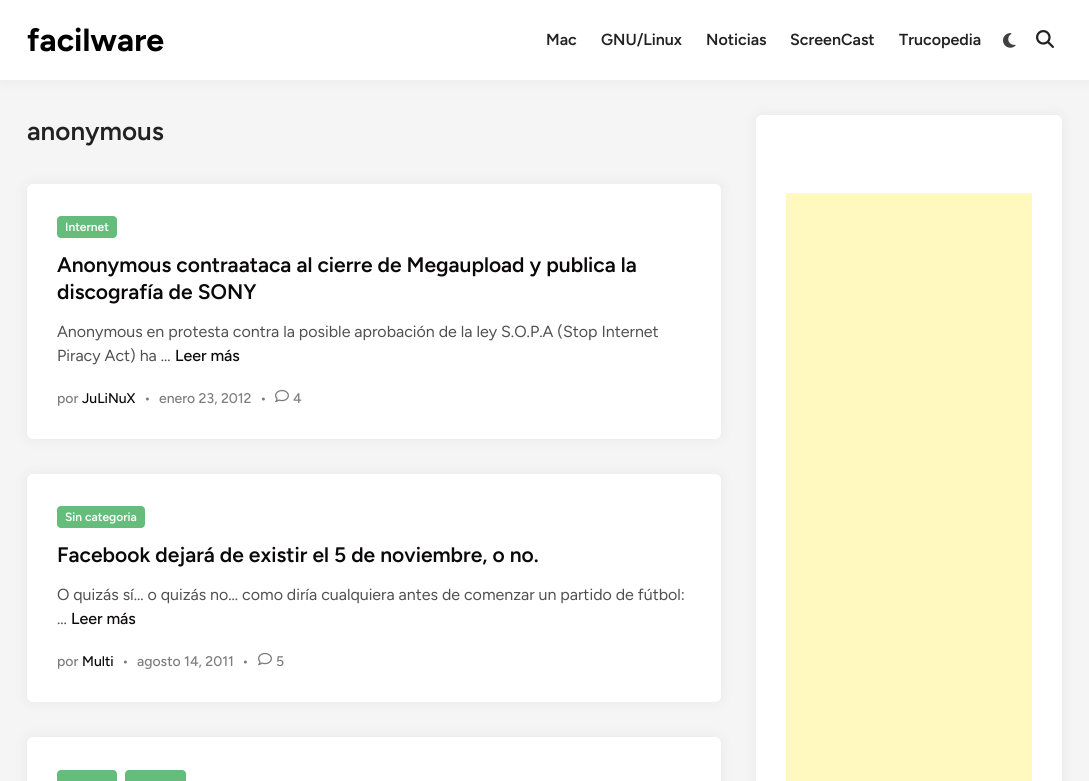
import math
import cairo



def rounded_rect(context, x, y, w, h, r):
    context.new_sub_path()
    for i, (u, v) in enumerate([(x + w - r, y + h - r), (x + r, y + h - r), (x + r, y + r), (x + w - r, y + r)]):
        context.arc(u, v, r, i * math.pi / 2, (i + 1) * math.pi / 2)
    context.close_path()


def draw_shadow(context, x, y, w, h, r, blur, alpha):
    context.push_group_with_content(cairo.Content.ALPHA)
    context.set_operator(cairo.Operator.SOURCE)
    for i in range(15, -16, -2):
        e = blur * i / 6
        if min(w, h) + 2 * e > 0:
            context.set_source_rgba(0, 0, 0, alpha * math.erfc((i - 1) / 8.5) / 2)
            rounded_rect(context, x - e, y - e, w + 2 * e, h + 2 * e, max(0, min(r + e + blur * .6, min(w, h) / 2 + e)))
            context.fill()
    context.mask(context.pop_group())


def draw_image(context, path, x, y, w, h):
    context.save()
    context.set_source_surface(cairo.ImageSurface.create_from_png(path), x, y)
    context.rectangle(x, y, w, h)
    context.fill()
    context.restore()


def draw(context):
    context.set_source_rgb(245 / 255, 245 / 255, 245 / 255)
    context.paint()
    context.set_source_rgb(0, 0, 0)
    draw_shadow(context, 0, 0, 1089, 80, 0, 7.5, 0.06)
    context.set_source_rgb(1, 1, 1)
    context.rectangle(0, 0, 1089, 80)
    context.fill()
    draw_image(context, "images/1.png", 1003, 33, 13, 15)
    draw_image(context, "images/2.png", 1036, 30, 18, 18)
    context.set_source_rgb(0, 0, 0)
    draw_shadow(context, 27, 184, 694, 255, 6, 7.5, 0.06)
    context.set_source_rgb(1, 1, 1)
    rounded_rect(context, 27, 184, 694, 255, 6)
    context.fill()
    context.set_source_rgb(101 / 255, 188 / 255, 123 / 255)
    rounded_rect(context, 57, 216, 60, 22, 4)
    context.fill()
    draw_image(context, "images/3.png", 275, 389, 14, 14)
    context.set_source_rgb(0, 0, 0)
    draw_shadow(context, 27, 474, 694, 228, 6, 7.5, 0.06)
    context.set_source_rgb(1, 1, 1)
    rounded_rect(context, 27, 474, 694, 228, 6)
    context.fill()
    context.set_source_rgb(101 / 255, 188 / 255, 123 / 255)
    rounded_rect(context, 57, 506, 88, 22, 4)
    context.fill()
    draw_image(context, "images/3.png", 258, 652, 14, 14)
    context.set_source_rgb(0, 0, 0)
    draw_shadow(context, 27, 737, 694, 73, 6, 7.5, 0.06)
    context.set_source_rgb(1, 1, 1)
    rounded_rect(context, 27, 737, 694, 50, 6)
    context.fill()
    context.set_source_rgb(101 / 255, 188 / 255, 123 / 255)
    rounded_rect(context, 57, 770, 60, 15, 4)
    context.fill()
    rounded_rect(context, 125, 770, 61, 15, 4)
    context.fill()
    context.set_source_rgb(0, 0, 0)
    draw_shadow(context, 756, 115, 306, 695, 6, 7.5, 0.06)
    context.set_source_rgb(1, 1, 1)
    rounded_rect(context, 756, 115, 306, 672, 6)
    context.fill()
    context.set_source_rgb(1, 249 / 255, 192 / 255)
    context.rectangle(786, 193, 246, 588)
    context.fill()
    context.select_font_face("Figtree", cairo.FontSlant.NORMAL, cairo.FontWeight.BOLD)
    context.set_font_size(32)
    context.set_source_rgb(0, 0, 0)
    context.move_to(27, 51)
    context.show_text("facilware")
    context.select_font_face("Figtree SemiBold")
    context.set_font_size(16)
    context.set_source_rgb(34 / 255, 34 / 255, 34 / 255)
    context.move_to(546, 45)
    context.show_text("Mac")
    context.move_to(601, 45)
    context.show_text("GNU/Linux")
    context.move_to(706, 45)
    context.show_text("Noticias")
    context.move_to(790, 45)
    context.show_text("ScreenCast")
    context.move_to(899, 45)
    context.show_text("Trucopedia")
    context.set_font_size(26)
    context.move_to(27, 140)
    context.show_text("anonymous")
    context.set_font_size(12)
    context.set_source_rgb(1, 1, 1)
    context.move_to(65, 231)
    context.show_text("Internet")
    context.set_font_size(21)
    context.set_source_rgb(10 / 255, 8 / 255, 8 / 255)
    context.move_to(57, 272)
    context.show_text("Anonymous contraataca al cierre de Megaupload y publica la")
    context.move_to(57, 299)
    context.show_text("discografía de SONY")
    context.select_font_face("Figtree")
    context.set_font_size(16)
    context.set_source_rgb(80 / 255, 80 / 255, 80 / 255)
    context.move_to(57, 337)
    context.show_text("Anonymous en protesta contra la posible aprobación de la ley S.O.P.A (Stop Internet")
    context.move_to(57, 361)
    context.show_text("Piracy Act) ha …")
    context.select_font_face("Figtree Medium")
    context.set_source_rgb(10 / 255, 8 / 255, 8 / 255)
    context.move_to(175, 361)
    context.show_text("Leer más")
    context.set_font_size(14)
    context.set_source_rgb(125 / 255, 125 / 255, 125 / 255)
    context.move_to(57, 403)
    context.show_text("por")
    context.set_source_rgb(10 / 255, 8 / 255, 8 / 255)
    context.move_to(82, 403)
    context.show_text("JuLiNuX")
    context.set_source_rgb(125 / 255, 125 / 255, 125 / 255)
    context.move_to(144, 403)
    context.show_text("•")
    context.move_to(159, 403)
    context.show_text("enero 23, 2012")
    context.move_to(260, 403)
    context.show_text("•")
    context.move_to(293, 403)
    context.show_text("4")
    context.select_font_face("Figtree SemiBold")
    context.set_font_size(12)
    context.set_source_rgb(1, 1, 1)
    context.move_to(65, 521)
    context.show_text("Sin categoria")
    context.set_font_size(21)
    context.set_source_rgb(10 / 255, 8 / 255, 8 / 255)
    context.move_to(57, 562)
    context.show_text("Facebook dejará de existir el 5 de noviembre, o no.")
    context.select_font_face("Figtree")
    context.set_font_size(16)
    context.set_source_rgb(80 / 255, 80 / 255, 80 / 255)
    context.move_to(57, 600)
    context.show_text("O quizás sí… o quizás no… como diría cualquiera antes de comenzar un partido de fútbol:")
    context.move_to(57, 624)
    context.show_text("…")
    context.select_font_face("Figtree Medium")
    context.set_source_rgb(10 / 255, 8 / 255, 8 / 255)
    context.move_to(71, 624)
    context.show_text("Leer más")
    context.set_font_size(14)
    context.set_source_rgb(125 / 255, 125 / 255, 125 / 255)
    context.move_to(57, 666)
    context.show_text("por")
    context.set_source_rgb(10 / 255, 8 / 255, 8 / 255)
    context.move_to(82, 666)
    context.show_text("Multi")
    context.set_source_rgb(125 / 255, 125 / 255, 125 / 255)
    context.move_to(122, 666)
    context.show_text("•")
    context.move_to(137, 666)
    context.show_text("agosto 14, 2011")
    context.move_to(242, 666)
    context.show_text("•")
    context.move_to(276, 666)
    context.show_text("5")


surface = cairo.ImageSurface(cairo.Format.RGB24, 1089, 781)
context = cairo.Context(surface)
options = cairo.FontOptions()
options.set_hint_metrics(cairo.HintMetrics.OFF)
options.set_hint_style(cairo.HintStyle.NONE)
context.set_font_options(options)
context.set_miter_limit(4)
draw(context)
surface.write_to_png("out.png")
